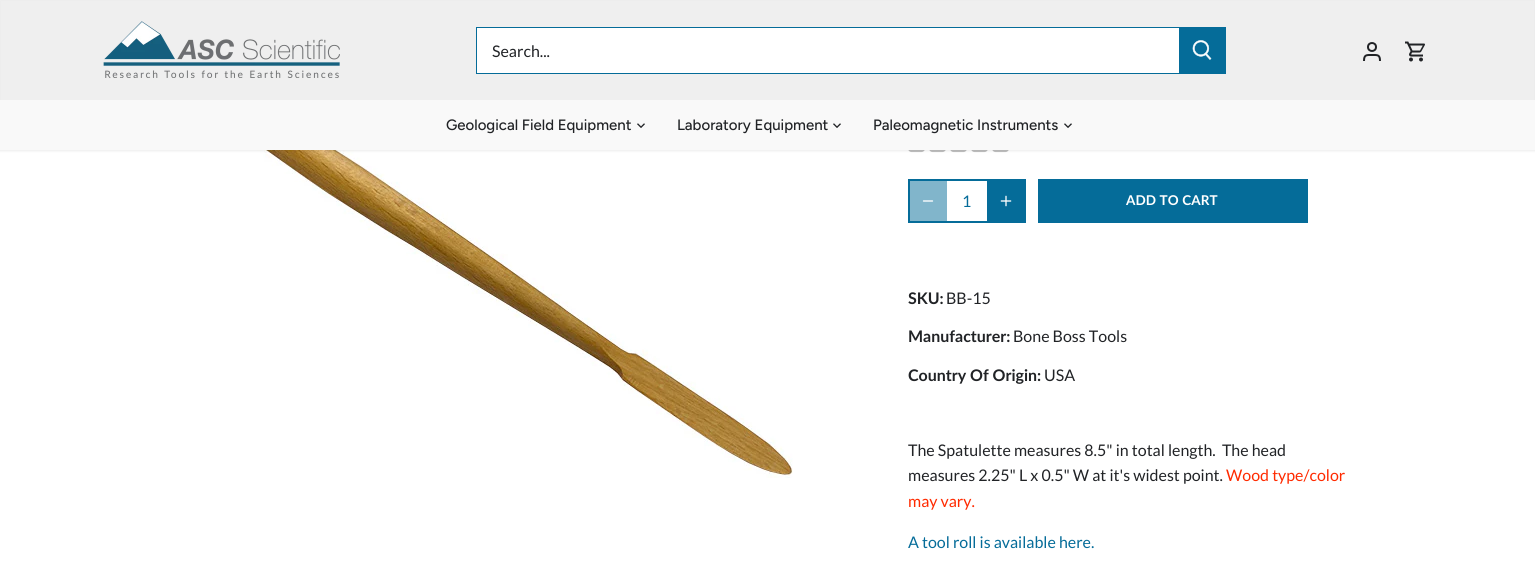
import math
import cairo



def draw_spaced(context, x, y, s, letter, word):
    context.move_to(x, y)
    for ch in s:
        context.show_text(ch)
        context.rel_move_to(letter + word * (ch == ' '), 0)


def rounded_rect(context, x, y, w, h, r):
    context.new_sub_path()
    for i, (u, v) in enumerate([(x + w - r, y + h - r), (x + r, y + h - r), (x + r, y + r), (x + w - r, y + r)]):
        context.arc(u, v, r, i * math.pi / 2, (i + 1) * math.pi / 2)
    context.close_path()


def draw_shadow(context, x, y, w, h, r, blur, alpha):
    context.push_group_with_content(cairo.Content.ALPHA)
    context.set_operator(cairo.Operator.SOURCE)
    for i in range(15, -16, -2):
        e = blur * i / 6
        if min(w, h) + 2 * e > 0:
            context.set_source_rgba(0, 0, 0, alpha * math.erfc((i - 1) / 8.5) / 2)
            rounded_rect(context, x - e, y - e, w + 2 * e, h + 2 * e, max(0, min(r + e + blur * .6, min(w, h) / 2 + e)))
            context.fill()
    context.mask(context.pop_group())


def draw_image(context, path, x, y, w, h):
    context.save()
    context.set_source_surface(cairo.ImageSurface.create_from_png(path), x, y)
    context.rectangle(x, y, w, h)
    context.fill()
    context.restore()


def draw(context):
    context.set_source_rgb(1, 1, 1)
    context.paint()
    draw_image(context, "images/5.png", 248, 150, 545, 328)
    draw_image(context, "images/6.png", 908, 150, 17, 3)
    draw_image(context, "images/6.png", 929, 150, 17, 3)
    draw_image(context, "images/6.png", 950, 150, 17, 3)
    draw_image(context, "images/6.png", 971, 150, 17, 3)
    draw_image(context, "images/6.png", 992, 150, 17, 3)
    context.set_source_rgb(0, 0, 0)
    draw_shadow(context, -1, -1, 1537, 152, 0, 1.5, 0.08)
    context.set_source_rgb(249 / 255, 249 / 255, 249 / 255)
    context.rectangle(0, 100, 1535, 50)
    context.fill()
    context.set_source_rgb(239 / 255, 239 / 255, 239 / 255)
    context.rectangle(1, 1, 1533, 99)
    context.fill()
    draw_image(context, "images/1.png", 103, 21, 237, 57)
    context.rectangle(476.5, 27.5, 749, 46)
    context.set_source_rgb(5 / 255, 108 / 255, 153 / 255)
    context.set_line_width(1)
    context.stroke()
    context.set_source_rgb(1, 1, 1)
    context.rectangle(477, 28, 702, 45)
    context.fill()
    context.set_source_rgb(5 / 255, 108 / 255, 153 / 255)
    context.rectangle(1179, 28, 46, 45)
    context.fill()
    draw_image(context, "images/2.png", 1192, 40, 20, 20)
    context.arc(1372, 47, 4, 0, 2 * math.pi)
    context.set_source_rgb(33 / 255, 35 / 255, 38 / 255)
    context.set_line_width(2)
    context.stroke()
    context.new_path()
    context.move_to(1380, 61)
    context.curve_to(1380, 54.5, 1377.5, 55, 1372, 55)
    context.curve_to(1366.5, 55, 1364, 54.5, 1364, 61)
    context.stroke()
    draw_image(context, "images/3.png", 1405, 41, 20, 21)
    draw_image(context, "images/4.png", 637, 123, 8, 5)
    draw_image(context, "images/4.png", 833, 123, 8, 5)
    draw_image(context, "images/4.png", 1064, 123, 8, 5)
    context.rectangle(909.5, 180.5, 115, 41)
    context.set_source_rgb(5 / 255, 108 / 255, 153 / 255)
    context.set_line_width(1)
    context.stroke()
    context.rectangle(908.5, 179.5, 117, 43)
    context.stroke()
    context.set_source_rgba(5 / 255, 108 / 255, 153 / 255, 0.5)
    context.rectangle(910, 181, 37, 40)
    context.fill()
    context.new_path()
    context.move_to(923.5, 201)
    context.line_to(932.5, 201)
    context.set_source_rgb(1, 1, 1)
    context.set_line_width(1.3)
    context.set_line_cap(cairo.LineCap.ROUND)
    context.set_line_join(cairo.LineJoin.ROUND)
    context.stroke()
    context.set_source_rgb(5 / 255, 108 / 255, 153 / 255)
    context.rectangle(987, 181, 37, 40)
    context.fill()
    draw_image(context, "images/7.png", 1000, 195, 12, 12)
    context.rectangle(1038, 179, 270, 44)
    context.fill()
    context.select_font_face("Lato")
    context.set_font_size(16)
    context.set_source_rgb(33 / 255, 35 / 255, 38 / 255)
    context.move_to(492, 57)
    context.show_text("Search...")
    context.select_font_face("Figtree Medium")
    context.set_font_size(15)
    context.move_to(446, 130)
    context.show_text("Geological Field Equipment")
    context.move_to(677, 130)
    context.show_text("Laboratory Equipment")
    context.move_to(873, 130)
    context.show_text("Paleomagnetic Instruments")
    context.select_font_face("Lato")
    context.set_font_size(16)
    context.set_source_rgb(5 / 255, 108 / 255, 153 / 255)
    context.move_to(962, 207)
    context.show_text("1")
    context.select_font_face("Lato", cairo.FontSlant.NORMAL, cairo.FontWeight.BOLD)
    context.set_font_size(13.5)
    context.set_source_rgb(1, 1, 1)
    draw_spaced(context, 1126, 205, "ADD TO CART", 0.1, 0)
    context.new_path()
    context.move_to(1176.5, 205.5)
    context.curve_to(1174.5, 207.5, 1170.5, 207.5, 1168.5, 205.5)
    context.set_source_rgb(5 / 255, 108 / 255, 153 / 255)
    context.set_line_width(2)
    context.set_line_cap(cairo.LineCap.BUTT)
    context.set_line_join(cairo.LineJoin.MITER)
    context.stroke()
    context.set_font_size(16)
    context.set_source_rgb(33 / 255, 35 / 255, 38 / 255)
    context.move_to(908, 304)
    context.show_text("SKU:")
    context.select_font_face("Lato")
    context.move_to(946, 304)
    context.show_text("BB-15")
    context.select_font_face("Lato", cairo.FontSlant.NORMAL, cairo.FontWeight.BOLD)
    context.move_to(908, 342)
    context.show_text("Manufacturer:")
    context.select_font_face("Lato")
    context.move_to(1013, 342)
    context.show_text("Bone Boss Tools")
    context.select_font_face("Lato", cairo.FontSlant.NORMAL, cairo.FontWeight.BOLD)
    context.move_to(908, 381)
    context.show_text("Country Of Origin:")
    context.select_font_face("Lato")
    context.move_to(1044, 381)
    context.show_text("USA")
    context.move_to(908, 456)
    context.show_text("The Spatulette measures 8.5\" in total length.  The head")
    context.move_to(908, 481)
    context.show_text("measures 2.25\" L x 0.5\" W at it's widest point.")
    context.set_source_rgb(1, 42 / 255, 0)
    context.move_to(1226, 481)
    context.show_text("Wood type/color")
    context.move_to(908, 507)
    context.show_text("may vary.")
    context.set_source_rgb(5 / 255, 108 / 255, 153 / 255)
    context.move_to(908, 548)
    context.show_text("A tool roll is available here.")


surface = cairo.ImageSurface(cairo.Format.RGB24, 1535, 578)
context = cairo.Context(surface)
options = cairo.FontOptions()
options.set_hint_metrics(cairo.HintMetrics.OFF)
options.set_hint_style(cairo.HintStyle.NONE)
context.set_font_options(options)
context.set_miter_limit(4)
draw(context)
surface.write_to_png("out.png")
